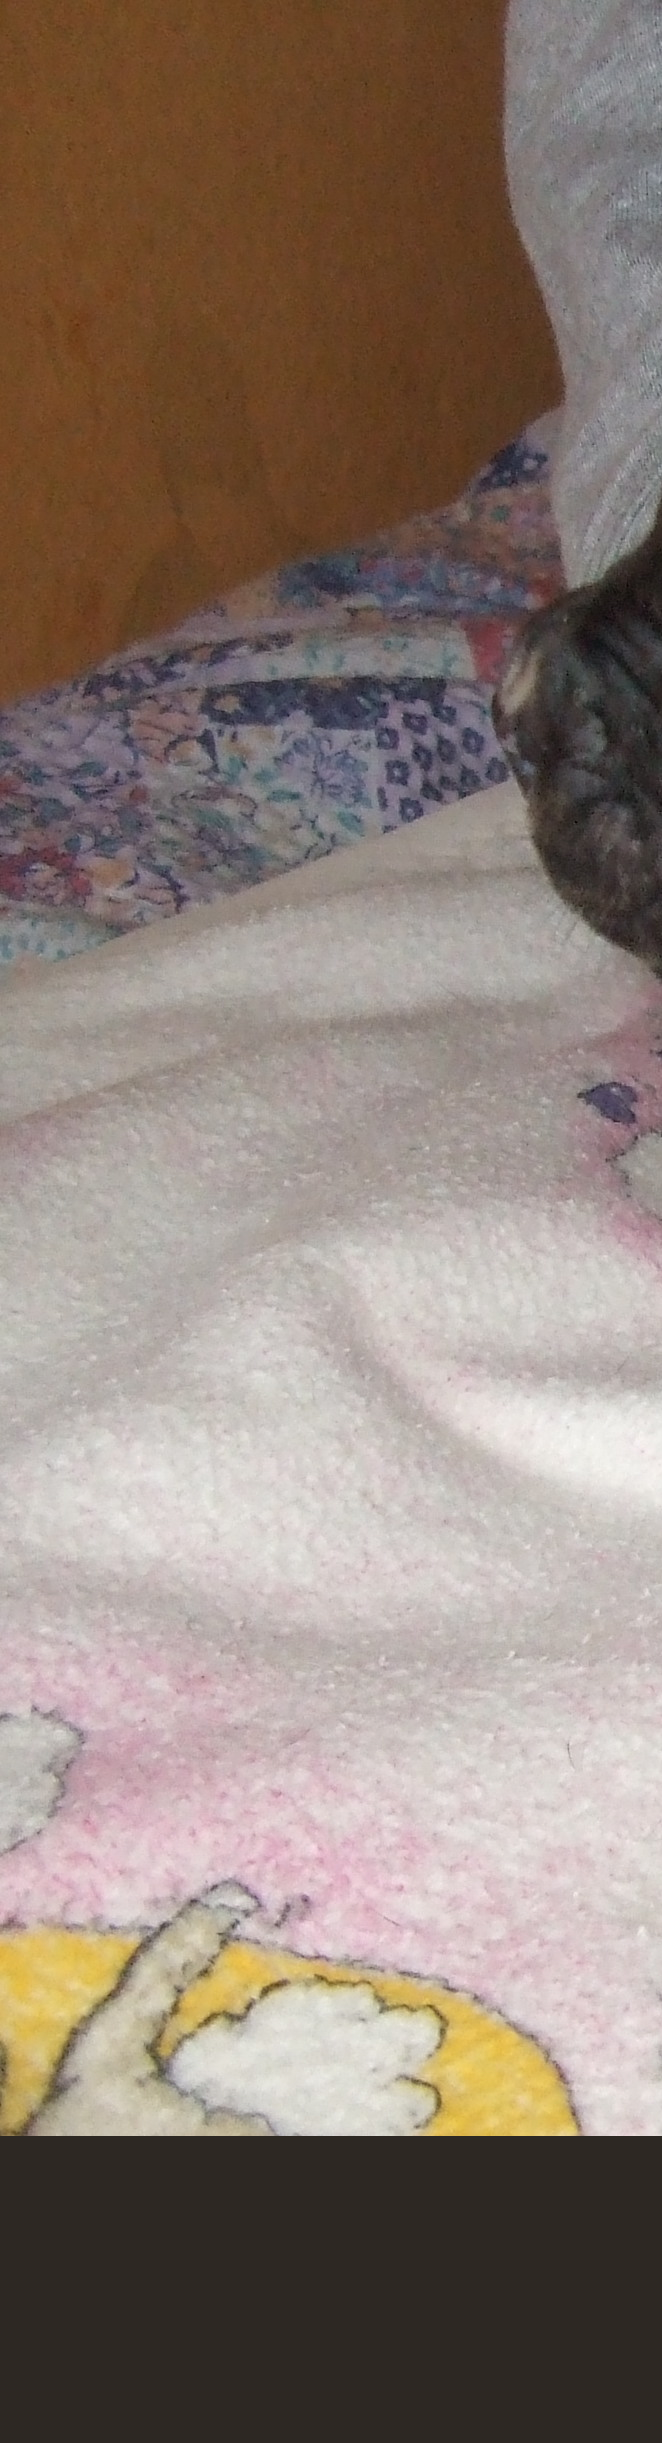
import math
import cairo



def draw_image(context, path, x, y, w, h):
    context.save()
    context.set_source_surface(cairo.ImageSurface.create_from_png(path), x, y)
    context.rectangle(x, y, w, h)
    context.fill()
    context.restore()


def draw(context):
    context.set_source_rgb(45 / 255, 40 / 255, 35 / 255)
    context.paint()
    draw_image(context, "images/1.png", 0, 0, 662, 2136)


surface = cairo.ImageSurface(cairo.Format.RGB24, 662, 2443)
context = cairo.Context(surface)
options = cairo.FontOptions()
options.set_hint_metrics(cairo.HintMetrics.OFF)
options.set_hint_style(cairo.HintStyle.NONE)
context.set_font_options(options)
context.set_miter_limit(4)
draw(context)
surface.write_to_png("out.png")
